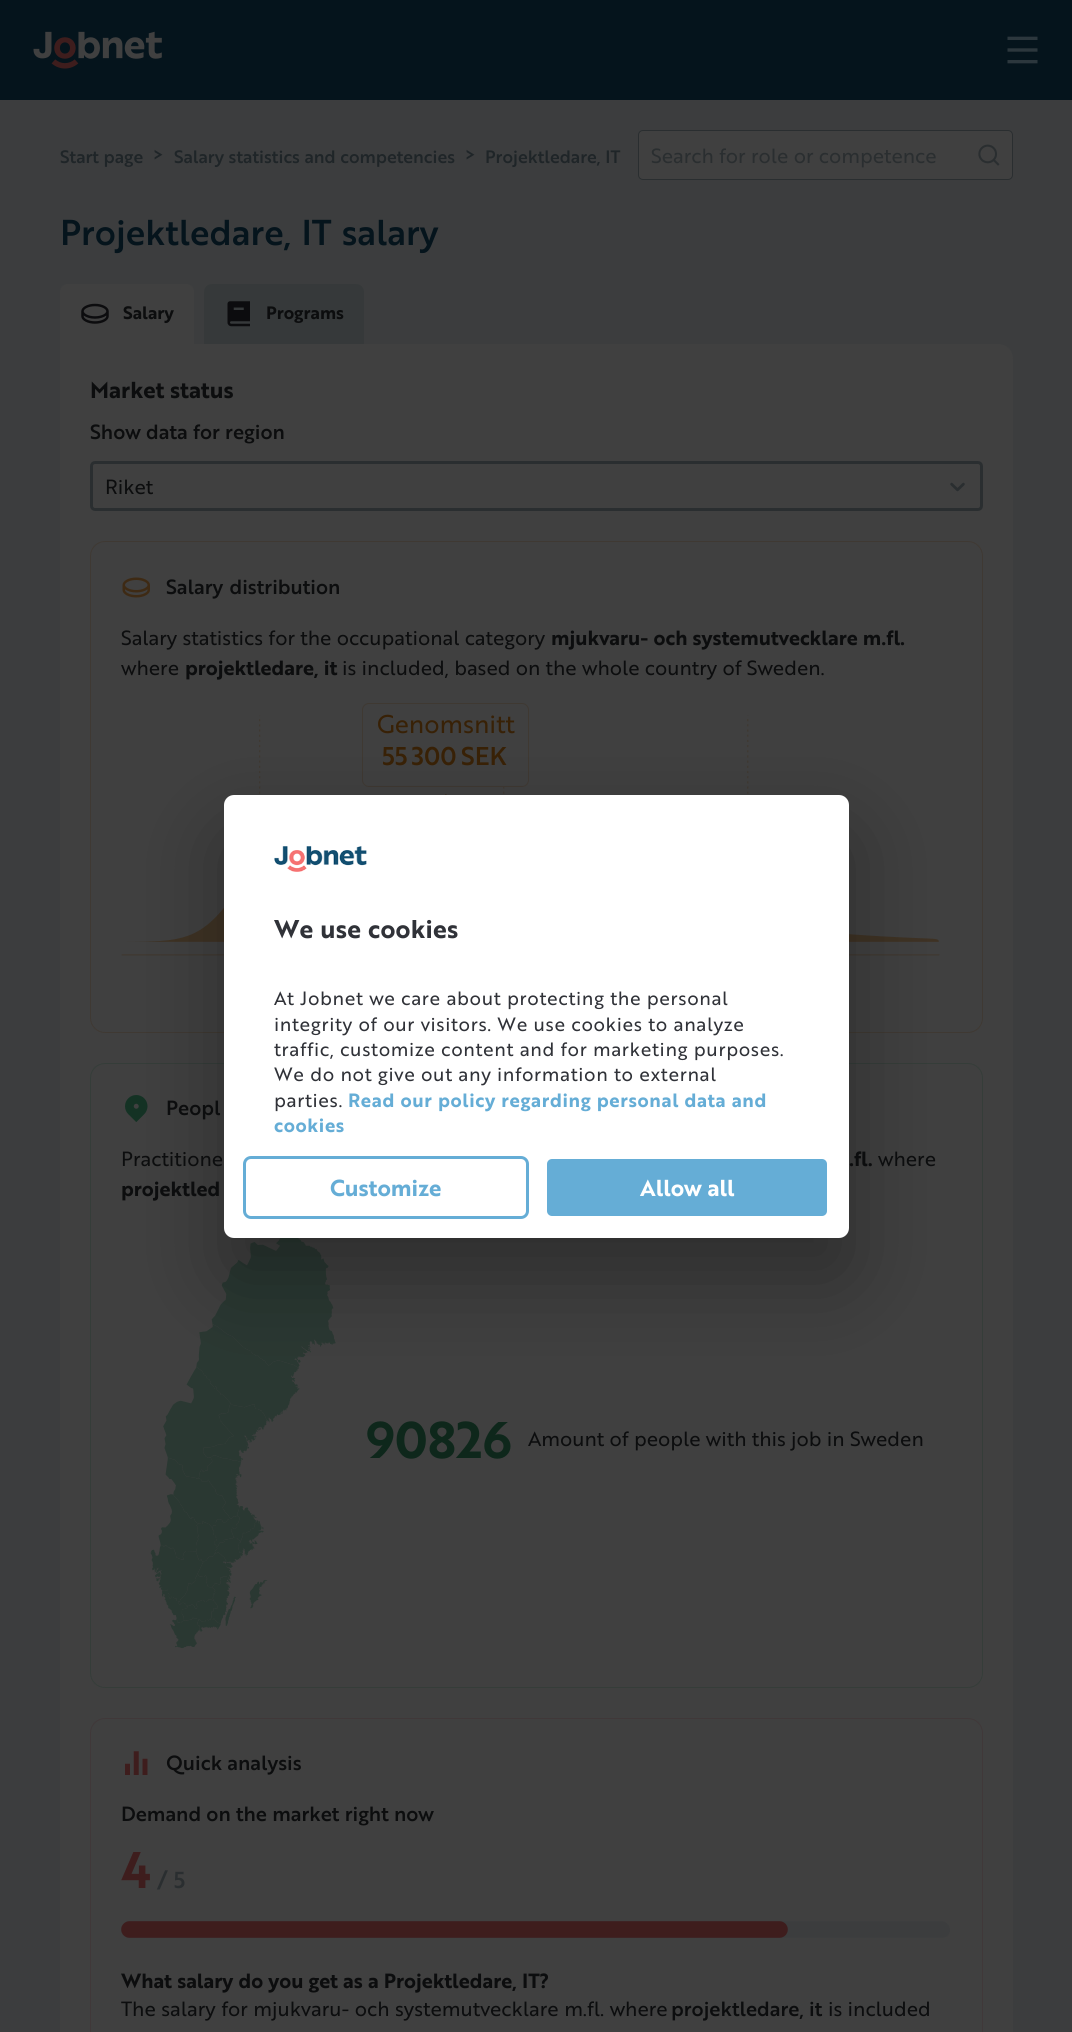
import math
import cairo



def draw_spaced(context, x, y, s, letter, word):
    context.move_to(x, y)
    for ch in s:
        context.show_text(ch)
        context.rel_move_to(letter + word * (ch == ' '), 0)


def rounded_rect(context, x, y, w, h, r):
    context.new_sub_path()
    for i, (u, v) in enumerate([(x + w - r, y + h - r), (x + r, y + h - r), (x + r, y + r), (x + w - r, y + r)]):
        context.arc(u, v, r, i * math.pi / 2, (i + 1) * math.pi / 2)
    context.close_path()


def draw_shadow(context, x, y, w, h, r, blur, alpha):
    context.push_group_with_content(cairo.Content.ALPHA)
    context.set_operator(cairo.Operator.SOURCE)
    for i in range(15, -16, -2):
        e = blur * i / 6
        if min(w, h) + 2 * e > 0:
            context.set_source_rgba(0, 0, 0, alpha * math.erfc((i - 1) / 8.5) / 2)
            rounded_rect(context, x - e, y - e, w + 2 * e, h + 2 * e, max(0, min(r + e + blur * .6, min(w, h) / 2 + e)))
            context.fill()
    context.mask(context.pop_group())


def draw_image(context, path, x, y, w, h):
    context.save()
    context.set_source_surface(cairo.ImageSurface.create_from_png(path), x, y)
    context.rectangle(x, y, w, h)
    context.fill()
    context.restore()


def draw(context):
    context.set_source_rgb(60 / 255, 61 / 255, 62 / 255)
    context.paint()
    context.set_source_rgb(5 / 255, 20 / 255, 28 / 255)
    context.rectangle(0, 0, 1072, 100)
    context.fill()
    draw_image(context, "images/1.png", 33, 31, 129, 38)
    draw_image(context, "images/2.png", 1007, 36, 31, 28)
    context.set_source_rgb(64 / 255, 64 / 255, 64 / 255)
    rounded_rect(context, 638.5, 130.5, 374, 49, 4.5)
    context.fill_preserve()
    context.set_source_rgb(42 / 255, 46 / 255, 48 / 255)
    context.set_line_width(1)
    context.stroke()
    draw_image(context, "images/3.png", 978, 144, 22, 22)
    context.set_source_rgb(64 / 255, 64 / 255, 64 / 255)
    context.new_path()
    context.move_to(68, 284)
    context.line_to(186, 284)
    context.curve_to(190.5, 284, 194, 287.5, 194, 292)
    context.line_to(194, 344)
    context.line_to(60, 344)
    context.line_to(60, 292)
    context.curve_to(60, 287.5, 63.5, 284, 68, 284)
    context.close_path()
    context.fill()
    draw_image(context, "images/4.png", 81, 303, 28, 21)
    context.set_source_rgb(54 / 255, 57 / 255, 58 / 255)
    context.new_path()
    context.move_to(212, 284)
    context.line_to(356, 284)
    context.curve_to(360.5, 284, 364, 287.5, 364, 292)
    context.line_to(364, 344)
    context.line_to(204, 344)
    context.line_to(204, 292)
    context.curve_to(204, 287.5, 207.5, 284, 212, 284)
    context.close_path()
    context.fill()
    draw_image(context, "images/5.png", 227, 301, 23, 26)
    context.set_source_rgb(64 / 255, 64 / 255, 64 / 255)
    context.new_path()
    context.move_to(60, 344)
    context.line_to(998, 344)
    context.curve_to(1006.5, 344, 1013, 350.5, 1013, 359)
    context.line_to(1013, 2032)
    context.curve_to(1013, 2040.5, 1006.5, 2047, 998, 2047)
    context.line_to(75, 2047)
    context.curve_to(66.5, 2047, 60, 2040.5, 60, 2032)
    context.close_path()
    context.fill()
    rounded_rect(context, 91.5, 462.5, 890, 47, 3.5)
    context.set_source_rgb(42 / 255, 46 / 255, 48 / 255)
    context.set_line_width(3)
    context.stroke()
    draw_image(context, "images/6.png", 950, 482, 15, 10)
    rounded_rect(context, 90.5, 541.5, 892, 491, 14.5)
    context.set_source_rgb(63 / 255, 57 / 255, 51 / 255)
    context.set_line_width(1)
    context.stroke()
    draw_image(context, "images/7.png", 122, 577, 28, 21)
    draw_image(context, "images/8.png", 121, 703, 819, 253)
    rounded_rect(context, 90.5, 1063.5, 892, 624, 14.5)
    context.set_source_rgb(53 / 255, 61 / 255, 57 / 255)
    context.stroke()
    draw_image(context, "images/9.png", 125, 1095, 23, 27)
    draw_image(context, "images/10.png", 150, 1238, 186, 411)
    rounded_rect(context, 90.5, 1718.5, 892, 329, 14.5)
    context.set_source_rgb(64 / 255, 56 / 255, 57 / 255)
    context.stroke()
    draw_image(context, "images/11.png", 125, 1751, 23, 24)
    context.save()
    rounded_rect(context, 121, 1921, 829, 18, 9)
    context.clip()
    context.new_path()
    context.move_to(129.5, 1929.5)
    context.line_to(942, 1929.5)
    context.set_source_rgb(60 / 255, 61 / 255, 62 / 255)
    context.set_line_width(16.6)
    context.set_line_cap(cairo.LineCap.ROUND)
    context.stroke()
    context.new_path()
    context.move_to(129.5, 1929.5)
    context.line_to(779.5, 1929.5)
    context.set_source_rgb(62 / 255, 29 / 255, 29 / 255)
    context.stroke()
    context.restore()
    context.set_source_rgb(0, 0, 0)
    draw_shadow(context, 224, 835, 625, 443, 10, 42.5, 0.3)
    context.set_source_rgb(1, 1, 1)
    rounded_rect(context, 224, 795, 625, 443, 10)
    context.fill()
    draw_image(context, "images/12.png", 274, 846, 93, 26)
    rounded_rect(context, 244.5, 1157.5, 283, 60, 6.5)
    context.set_source_rgb(101 / 255, 173 / 255, 214 / 255)
    context.set_line_width(3)
    context.stroke()
    rounded_rect(context, 545.5, 1157.5, 283, 60, 6.5)
    context.fill_preserve()
    context.set_source_rgb(1, 1, 1)
    context.stroke()
    context.select_font_face("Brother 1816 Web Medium")
    context.set_font_size(17.5)
    context.set_source_rgb(31 / 255, 37 / 255, 40 / 255)
    context.move_to(60, 163)
    context.show_text("Start page")
    context.move_to(153, 161)
    context.show_text(">")
    context.move_to(174, 163)
    context.show_text("Salary statistics and competencies")
    context.move_to(465, 161)
    context.show_text(">")
    context.move_to(485, 163)
    context.show_text("Projektledare, IT")
    context.select_font_face("Brother 1816 Web")
    context.set_font_size(20)
    context.set_source_rgb(42 / 255, 46 / 255, 48 / 255)
    context.move_to(651, 163)
    context.show_text("Search for role or competence")
    context.select_font_face("Brother 1816 Web Medium")
    context.set_font_size(35)
    context.set_source_rgb(5 / 255, 20 / 255, 28 / 255)
    draw_spaced(context, 60, 245, "Projektledare, IT salary", 0, 1)
    context.select_font_face("Brother 1816 Web", cairo.FontSlant.NORMAL, cairo.FontWeight.BOLD)
    context.set_font_size(17.5)
    context.set_source_rgb(12 / 255, 13 / 255, 14 / 255)
    context.move_to(123, 319)
    context.show_text("Salary")
    context.move_to(266, 319)
    context.show_text("Programs")
    context.set_font_size(22.5)
    context.move_to(90, 398)
    context.show_text("Market status")
    context.select_font_face("Brother 1816 Web Medium")
    context.set_font_size(20)
    context.move_to(90, 439)
    context.show_text("Show data for region")
    context.select_font_face("Brother 1816 Web")
    context.move_to(105, 494)
    context.show_text("Riket")
    context.select_font_face("Brother 1816 Web Medium")
    draw_spaced(context, 166, 594, "Salary distribution", 0, 1)
    context.select_font_face("Brother 1816 Web")
    context.move_to(121, 645)
    context.show_text("Salary statistics for the occupational category")
    context.select_font_face("Brother 1816 Web", cairo.FontSlant.NORMAL, cairo.FontWeight.BOLD)
    context.move_to(551, 645)
    context.show_text("mjukvaru- och systemutvecklare m.fl.")
    context.select_font_face("Brother 1816 Web")
    context.move_to(121, 675)
    context.show_text("where")
    context.select_font_face("Brother 1816 Web", cairo.FontSlant.NORMAL, cairo.FontWeight.BOLD)
    context.move_to(185, 675)
    context.show_text("projektledare, it")
    context.select_font_face("Brother 1816 Web")
    context.move_to(342, 675)
    context.show_text("is included, based on the whole country of Sweden.")
    context.set_font_size(25)
    context.set_source_rgb(56 / 255, 33 / 255, 6 / 255)
    context.move_to(377, 733)
    context.show_text("Genomsnitt")
    context.select_font_face("Brother 1816 Web Medium")
    draw_spaced(context, 382, 765, "55 300 SEK", 0, -2)
    context.set_font_size(20)
    context.set_source_rgb(12 / 255, 13 / 255, 14 / 255)
    context.move_to(166, 1115)
    context.show_text("Peopl")
    context.select_font_face("Brother 1816 Web")
    context.move_to(121, 1166)
    context.show_text("Practitione")
    context.select_font_face("Brother 1816 Web", cairo.FontSlant.NORMAL, cairo.FontWeight.BOLD)
    context.move_to(849, 1166)
    context.show_text(".fl.")
    context.select_font_face("Brother 1816 Web")
    context.move_to(878, 1166)
    context.show_text("where")
    context.select_font_face("Brother 1816 Web", cairo.FontSlant.NORMAL, cairo.FontWeight.BOLD)
    context.move_to(121, 1196)
    context.show_text("projektled")
    context.set_font_size(50)
    context.set_source_rgb(14 / 255, 39 / 255, 27 / 255)
    context.move_to(366, 1458)
    context.show_text("90826")
    context.select_font_face("Brother 1816 Web")
    context.set_font_size(20)
    context.set_source_rgb(12 / 255, 13 / 255, 14 / 255)
    context.move_to(528, 1446)
    context.show_text("Amount of people with this job in Sweden")
    context.select_font_face("Brother 1816 Web Medium")
    context.move_to(166, 1770)
    context.show_text("Quick analysis")
    context.move_to(121, 1821)
    context.show_text("Demand on the market right now")
    context.select_font_face("Brother 1816 Web", cairo.FontSlant.NORMAL, cairo.FontWeight.BOLD)
    context.set_font_size(50)
    context.set_source_rgb(62 / 255, 29 / 255, 29 / 255)
    context.move_to(121, 1888)
    context.show_text("4")
    context.select_font_face("Brother 1816 Web Medium")
    context.set_font_size(22.5)
    context.set_source_rgb(42 / 255, 46 / 255, 48 / 255)
    context.move_to(157, 1888)
    context.show_text("/ 5")
    context.select_font_face("Brother 1816 Web", cairo.FontSlant.NORMAL, cairo.FontWeight.BOLD)
    context.set_font_size(20)
    context.set_source_rgb(12 / 255, 13 / 255, 14 / 255)
    context.move_to(121, 1988)
    context.show_text("What salary do you get as a Projektledare, IT?")
    context.select_font_face("Brother 1816 Web")
    draw_spaced(context, 121, 2016, "The salary for mjukvaru- och systemutvecklare m.fl. where", 0, 0.25)
    context.select_font_face("Brother 1816 Web Medium")
    context.move_to(671, 2016)
    context.show_text("projektledare, it")
    context.select_font_face("Brother 1816 Web")
    context.move_to(828, 2016)
    context.show_text("is included")
    context.select_font_face("Brother 1816 Web", cairo.FontSlant.NORMAL, cairo.FontWeight.BOLD)
    context.set_font_size(25)
    context.set_source_rgb(48 / 255, 50 / 255, 56 / 255)
    draw_spaced(context, 274, 938, "We use cookies", 0.25, 0)
    context.select_font_face("Brother 1816 Web")
    context.set_font_size(18.75)
    draw_spaced(context, 274, 1005, "At Jobnet we care about protecting the personal", 0.62, 0)
    draw_spaced(context, 274, 1031, "integrity of our visitors. We use cookies to analyze", 0.62, 0)
    draw_spaced(context, 274, 1056, "traffic, customize content and for marketing purposes.", 0.62, 0)
    draw_spaced(context, 274, 1081, "We do not give out any information to external", 0.62, 0)
    draw_spaced(context, 274, 1107, "parties.", 0.62, 0)
    context.select_font_face("Brother 1816 Web", cairo.FontSlant.NORMAL, cairo.FontWeight.BOLD)
    context.set_source_rgb(101 / 255, 173 / 255, 214 / 255)
    draw_spaced(context, 348, 1107, "Read our policy regarding personal data and", 0.62, 0)
    draw_spaced(context, 274, 1132, "cookies", 0.62, 0)
    context.set_font_size(22.5)
    context.move_to(330, 1196)
    context.show_text("Customize")
    context.set_source_rgb(1, 1, 1)
    context.move_to(640, 1196)
    context.show_text("Allow all")


surface = cairo.ImageSurface(cairo.Format.RGB24, 1072, 2032)
context = cairo.Context(surface)
options = cairo.FontOptions()
options.set_hint_metrics(cairo.HintMetrics.OFF)
options.set_hint_style(cairo.HintStyle.NONE)
context.set_font_options(options)
context.set_miter_limit(4)
draw(context)
surface.write_to_png("out.png")
